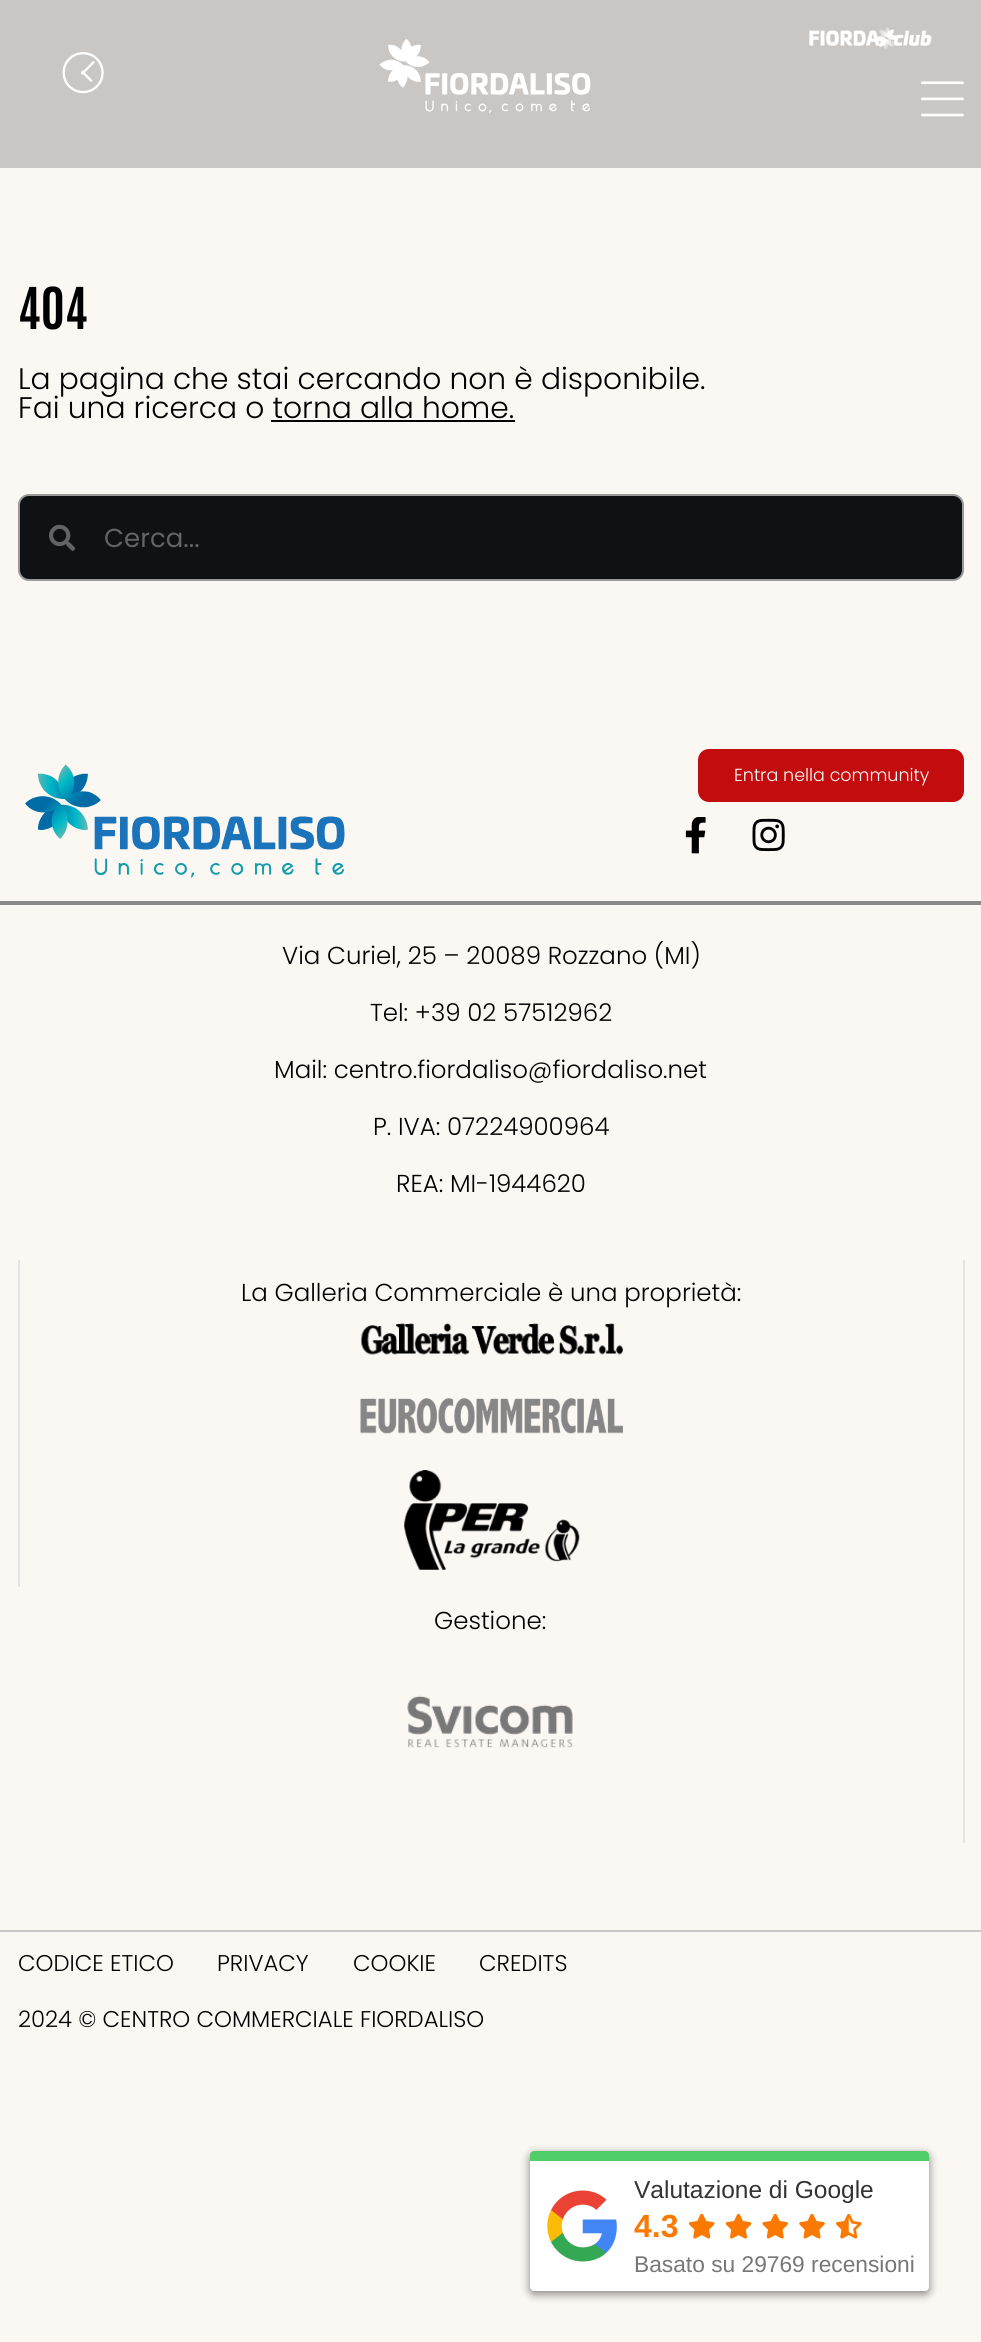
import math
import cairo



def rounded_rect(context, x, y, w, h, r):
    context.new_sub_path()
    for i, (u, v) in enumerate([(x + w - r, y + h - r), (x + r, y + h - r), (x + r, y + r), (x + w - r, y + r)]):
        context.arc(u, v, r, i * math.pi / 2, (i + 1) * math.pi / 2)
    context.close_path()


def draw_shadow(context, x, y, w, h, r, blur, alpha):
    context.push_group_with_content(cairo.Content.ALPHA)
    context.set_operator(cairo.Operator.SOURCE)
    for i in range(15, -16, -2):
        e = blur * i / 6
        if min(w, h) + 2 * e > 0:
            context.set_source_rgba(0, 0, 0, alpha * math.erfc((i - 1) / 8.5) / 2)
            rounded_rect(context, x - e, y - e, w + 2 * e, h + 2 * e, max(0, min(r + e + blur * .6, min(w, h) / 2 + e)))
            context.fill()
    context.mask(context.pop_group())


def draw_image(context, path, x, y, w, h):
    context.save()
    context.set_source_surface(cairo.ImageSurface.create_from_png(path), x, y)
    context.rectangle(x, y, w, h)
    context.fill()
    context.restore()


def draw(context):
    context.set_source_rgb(251 / 255, 247 / 255, 243 / 255)
    context.paint()
    context.set_source_rgb(201 / 255, 198 / 255, 195 / 255)
    context.rectangle(0, 0, 981, 168)
    context.fill()
    draw_image(context, "images/1.png", 62, 52, 42, 42)
    draw_image(context, "images/2.png", 379, 39, 212, 75)
    draw_image(context, "images/3.png", 809, 26, 123, 24)
    draw_image(context, "images/4.png", 921, 81, 43, 36)
    context.set_source_rgb(0, 0, 0)
    context.rectangle(271, 420, 244, 2)
    context.fill()
    context.set_source_rgb(14 / 255, 18 / 255, 21 / 255)
    rounded_rect(context, 19, 495, 944, 85, 10)
    context.fill_preserve()
    context.set_source_rgb(154 / 255, 154 / 255, 154 / 255)
    context.stroke()
    draw_image(context, "images/5.png", 49, 524, 27, 27)
    context.set_source_rgb(137 / 255, 137 / 255, 137 / 255)
    context.rectangle(0, 901, 981, 4)
    context.fill()
    draw_image(context, "images/6.png", 25, 764, 320, 114)
    context.set_source_rgb(194 / 255, 12 / 255, 13 / 255)
    rounded_rect(context, 698, 749, 266, 53, 11)
    context.fill()
    draw_image(context, "images/7.png", 685, 817, 21, 37)
    draw_image(context, "images/8.png", 752, 818, 33, 34)
    context.set_source_rgb(228 / 255, 228 / 255, 228 / 255)
    context.rectangle(963, 1260, 2, 583)
    context.fill()
    context.rectangle(18, 1260, 2, 327)
    context.fill()
    draw_image(context, "images/9.png", 360, 1323, 263, 32)
    draw_image(context, "images/10.png", 360, 1398, 263, 36)
    draw_image(context, "images/11.png", 404, 1470, 176, 100)
    draw_image(context, "images/12.png", 407, 1695, 166, 53)
    context.set_source_rgb(0, 0, 0)
    draw_shadow(context, 530, 2154, 399, 140, 4, 4.5, 0.26)
    context.set_source_rgb(199 / 255, 199 / 255, 199 / 255)
    context.rectangle(0, 1930, 981, 2)
    context.fill()
    context.set_source_rgb(0, 0, 0)
    draw_shadow(context, 530, 2154, 399, 140, 4, 4.5, 0.26)
    context.set_source_rgb(79 / 255, 206 / 255, 106 / 255)
    context.new_path()
    context.move_to(534, 2151)
    context.line_to(925, 2151)
    context.curve_to(927, 2151, 929, 2153, 929, 2155)
    context.line_to(929, 2161)
    context.line_to(530, 2161)
    context.line_to(530, 2155)
    context.curve_to(530, 2153, 532, 2151, 534, 2151)
    context.close_path()
    context.fill()
    context.set_source_rgb(1, 1, 1)
    context.new_path()
    context.move_to(530, 2161)
    context.line_to(929, 2161)
    context.line_to(929, 2287)
    context.curve_to(929, 2289, 927, 2291, 925, 2291)
    context.line_to(534, 2291)
    context.curve_to(532, 2291, 530, 2289, 530, 2287)
    context.close_path()
    context.fill()
    draw_image(context, "images/13.png", 547, 2190, 70, 72)
    draw_image(context, "images/14.png", 689, 2214, 26, 25)
    draw_image(context, "images/15.png", 725, 2214, 27, 25)
    draw_image(context, "images/16.png", 762, 2214, 26, 25)
    draw_image(context, "images/17.png", 799, 2214, 26, 25)
    draw_image(context, "images/18.png", 836, 2214, 26, 25)
    context.select_font_face("Antonio", cairo.FontSlant.NORMAL, cairo.FontWeight.BOLD)
    context.set_font_size(49)
    context.set_source_rgb(0, 0, 0)
    context.move_to(18, 329)
    context.show_text("404")
    context.select_font_face("Poppins Light")
    context.set_font_size(29.75)
    context.move_to(18, 389)
    context.show_text("La pagina che stai cercando non è disponibile.")
    context.move_to(18, 418)
    context.show_text("Fai una ricerca o torna alla home.")
    context.select_font_face("Poppins")
    context.set_font_size(26)
    context.set_source_rgb(98 / 255, 100 / 255, 101 / 255)
    context.move_to(104, 547)
    context.show_text("Cerca...")
    context.select_font_face("Poppins Light")
    context.set_font_size(17.5)
    context.set_source_rgb(1, 1, 1)
    context.move_to(734, 781)
    context.show_text("Entra nella community")
    context.set_font_size(24.5)
    context.set_source_rgb(0, 0, 0)
    context.move_to(282, 964)
    context.show_text("Via Curiel, 25 – 20089 Rozzano (MI)")
    context.move_to(370, 1021)
    context.show_text("Tel: +39 02 57512962")
    context.move_to(274, 1078)
    context.show_text("Mail: centro.fiordaliso@fiordaliso.net")
    context.move_to(373, 1135)
    context.show_text("P. IVA: 07224900964")
    context.move_to(396, 1192)
    context.show_text("REA: MI-1944620")
    context.move_to(241, 1301)
    context.show_text("La Galleria Commerciale è una proprietà:")
    context.move_to(434, 1629)
    context.show_text("Gestione:")
    context.set_font_size(22.75)
    context.move_to(18, 1971)
    context.show_text("CODICE ETICO")
    context.move_to(217, 1971)
    context.show_text("PRIVACY")
    context.move_to(353, 1971)
    context.show_text("COOKIE")
    context.move_to(479, 1971)
    context.show_text("CREDITS")
    context.move_to(18, 2027)
    context.show_text("2024 © CENTRO COMMERCIALE FIORDALISO")
    context.select_font_face("Liberation Sans")
    context.set_font_size(24.5)
    context.set_source_rgb(51 / 255, 51 / 255, 51 / 255)
    context.move_to(634, 2198)
    context.show_text("Valutazione di Google")
    context.select_font_face("Liberation Sans", cairo.FontSlant.NORMAL, cairo.FontWeight.BOLD)
    context.set_font_size(32)
    context.set_source_rgb(251 / 255, 121 / 255, 0)
    context.move_to(634, 2237)
    context.show_text("4.3")
    context.select_font_face("Liberation Sans")
    context.set_font_size(22.75)
    context.set_source_rgb(119 / 255, 119 / 255, 119 / 255)
    context.move_to(634, 2272)
    context.show_text("Basato su 29769 recensioni")


surface = cairo.ImageSurface(cairo.Format.RGB24, 981, 2342)
context = cairo.Context(surface)
options = cairo.FontOptions()
options.set_hint_metrics(cairo.HintMetrics.OFF)
options.set_hint_style(cairo.HintStyle.NONE)
context.set_font_options(options)
context.set_miter_limit(4)
draw(context)
surface.write_to_png("out.png")
